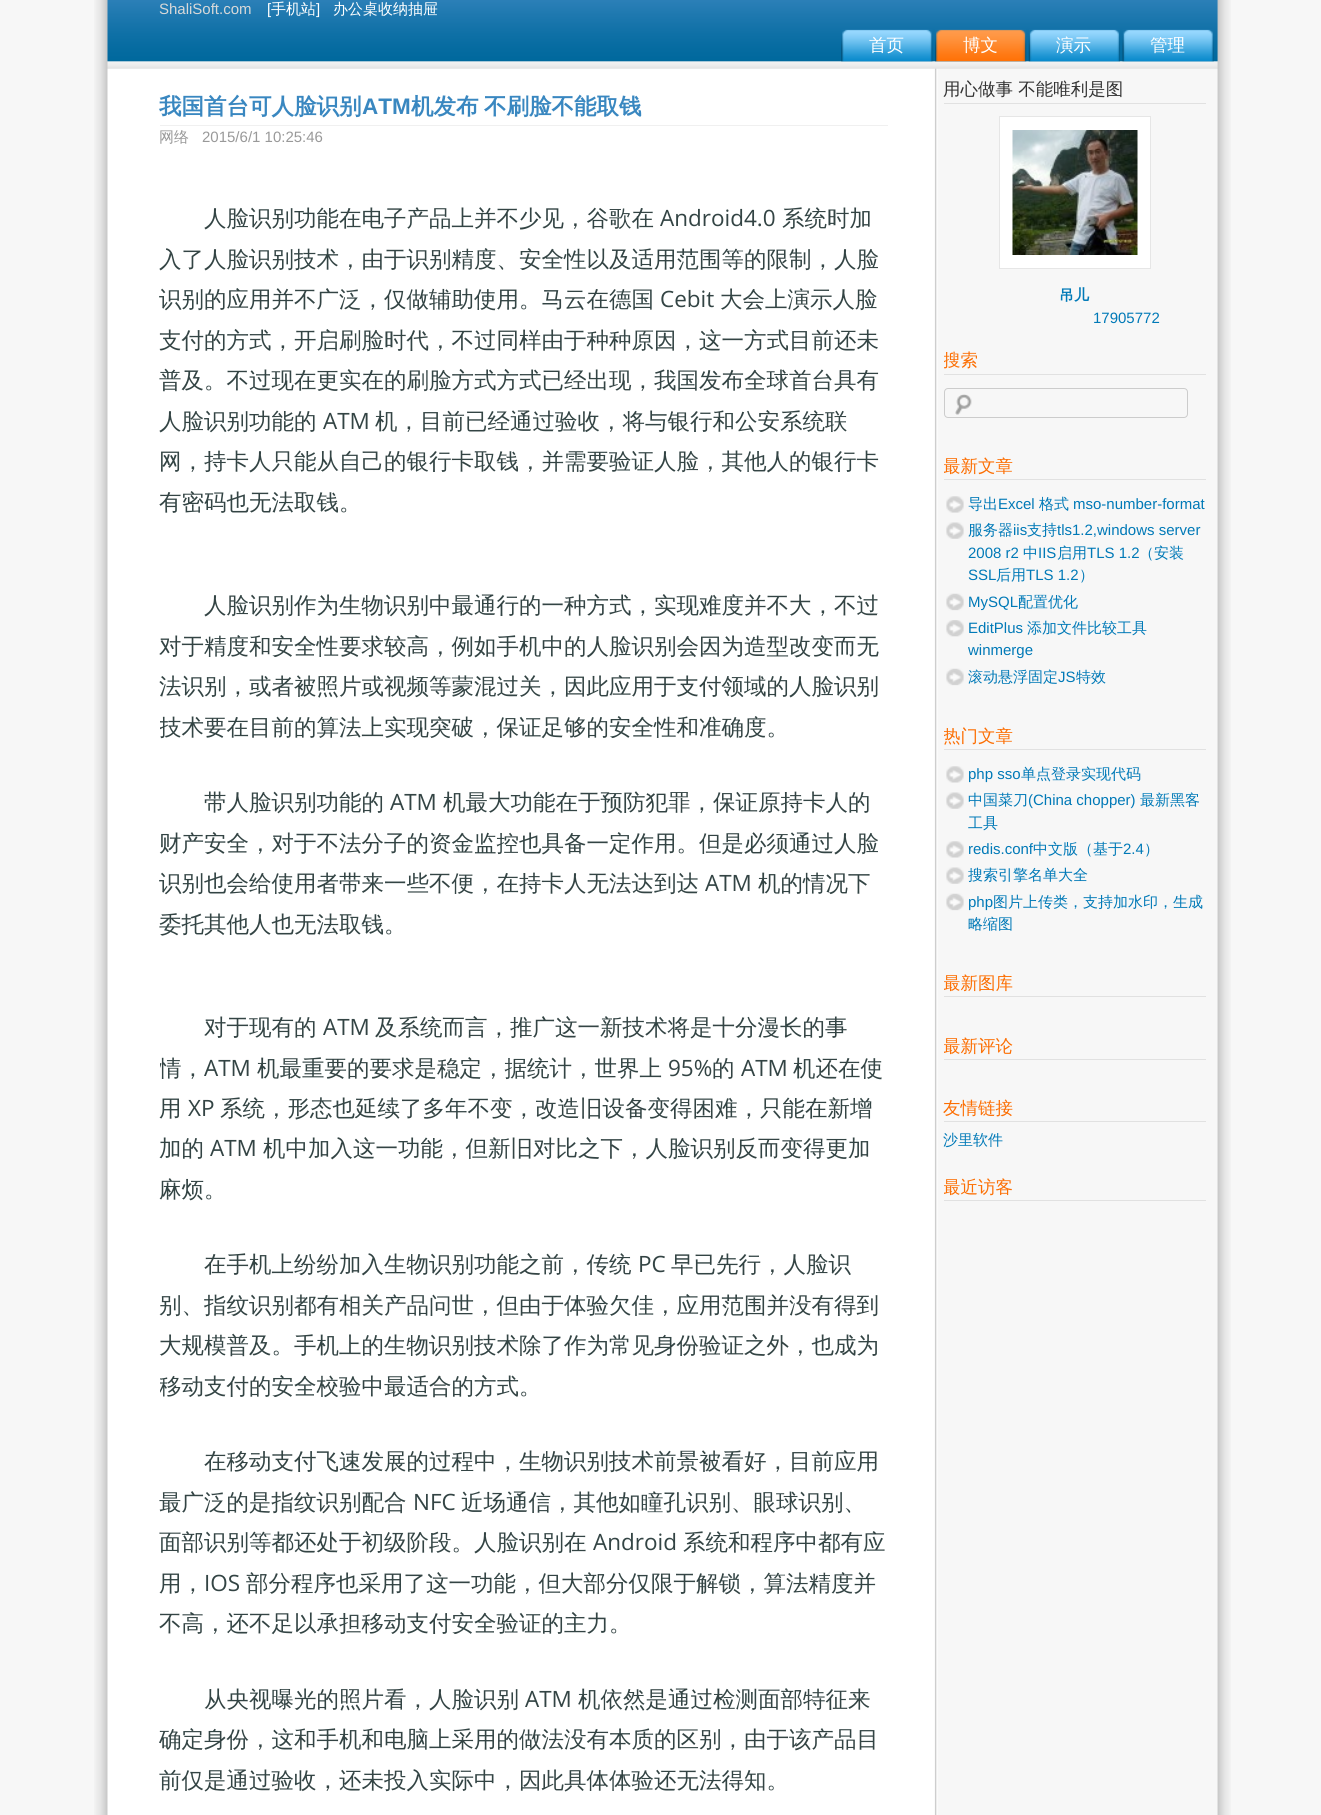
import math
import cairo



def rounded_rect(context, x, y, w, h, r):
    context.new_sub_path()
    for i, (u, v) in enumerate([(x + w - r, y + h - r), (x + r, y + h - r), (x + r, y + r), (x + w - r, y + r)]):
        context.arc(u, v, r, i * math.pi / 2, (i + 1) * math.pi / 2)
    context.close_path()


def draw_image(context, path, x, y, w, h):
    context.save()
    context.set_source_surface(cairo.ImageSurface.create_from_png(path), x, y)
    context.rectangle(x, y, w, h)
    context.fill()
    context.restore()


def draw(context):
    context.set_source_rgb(247 / 255, 247 / 255, 247 / 255)
    context.paint()
    draw_image(context, "images/1.png", 94, 0, 1137, 1815)
    draw_image(context, "images/2.png", 107, 0, 1111, 69)
    draw_image(context, "images/3.png", 841, 29, 92, 33)
    draw_image(context, "images/4.png", 935, 29, 92, 33)
    draw_image(context, "images/5.png", 1028, 29, 92, 33)
    draw_image(context, "images/6.png", 1122, 29, 92, 33)
    context.set_source_rgb(240 / 255, 240 / 255, 240 / 255)
    context.rectangle(160, 125, 728, 1)
    context.fill()
    context.set_source_rgb(225 / 255, 225 / 255, 225 / 255)
    context.rectangle(944, 103, 262, 1)
    context.fill()
    context.set_source_rgb(1, 1, 1)
    context.rectangle(999.5, 116.5, 151, 152)
    context.fill_preserve()
    context.set_source_rgb(230 / 255, 230 / 255, 230 / 255)
    context.set_line_width(1)
    context.stroke()
    draw_image(context, "images/7.png", 1012, 130, 126, 125)
    context.set_source_rgb(225 / 255, 225 / 255, 225 / 255)
    context.rectangle(944, 374, 262, 1)
    context.fill()
    draw_image(context, "images/8.png", 955, 394, 17, 21)
    rounded_rect(context, 944.5, 388.5, 243, 29, 3.5)
    context.set_source_rgb(204 / 255, 204 / 255, 204 / 255)
    context.stroke()
    context.set_source_rgb(225 / 255, 225 / 255, 225 / 255)
    context.rectangle(944, 479, 262, 1)
    context.fill()
    draw_image(context, "images/9.png", 946, 496, 18, 17)
    draw_image(context, "images/10.png", 946, 522, 18, 17)
    draw_image(context, "images/11.png", 946, 593, 18, 18)
    draw_image(context, "images/12.png", 946, 620, 18, 17)
    draw_image(context, "images/11.png", 946, 668, 18, 18)
    context.rectangle(944, 749, 262, 1)
    context.fill()
    draw_image(context, "images/13.png", 946, 766, 18, 17)
    draw_image(context, "images/10.png", 946, 792, 18, 17)
    draw_image(context, "images/13.png", 946, 841, 18, 17)
    draw_image(context, "images/10.png", 946, 867, 18, 17)
    draw_image(context, "images/11.png", 946, 893, 18, 18)
    context.rectangle(944, 996, 262, 1)
    context.fill()
    context.rectangle(944, 1059, 262, 1)
    context.fill()
    context.rectangle(944, 1121, 262, 1)
    context.fill()
    context.rectangle(944, 1200, 262, 1)
    context.fill()
    context.select_font_face("Liberation Sans")
    context.set_font_size(15)
    context.set_source_rgb(216 / 255, 216 / 255, 216 / 255)
    context.move_to(159, 14)
    context.show_text("ShaliSoft.com")
    context.set_source_rgb(1, 1, 1)
    context.move_to(267, 14)
    context.show_text("[")
    context.select_font_face("WenQuanYi Zen Hei Medium")
    context.move_to(271, 14)
    context.show_text("手机站")
    context.select_font_face("Liberation Sans")
    context.move_to(316, 14)
    context.show_text("]")
    context.select_font_face("WenQuanYi Zen Hei Medium")
    context.move_to(333, 14)
    context.show_text("办公桌收纳抽屉")
    context.set_font_size(17.5)
    context.move_to(869, 51)
    context.show_text("首页")
    context.move_to(963, 51)
    context.show_text("博文")
    context.move_to(1056, 51)
    context.show_text("演示")
    context.move_to(1150, 51)
    context.show_text("管理")
    context.select_font_face("WenQuanYi Zen Hei", cairo.FontSlant.NORMAL, cairo.FontWeight.BOLD)
    context.set_font_size(22.5)
    context.set_source_rgb(57 / 255, 135 / 255, 192 / 255)
    context.move_to(159, 114)
    context.show_text("我国首台可人脸识别")
    context.select_font_face("Liberation Sans", cairo.FontSlant.NORMAL, cairo.FontWeight.BOLD)
    context.move_to(362, 114)
    context.show_text("ATM")
    context.select_font_face("WenQuanYi Zen Hei", cairo.FontSlant.NORMAL, cairo.FontWeight.BOLD)
    context.move_to(411, 114)
    context.show_text("机发布")
    context.move_to(484, 114)
    context.show_text("不刷脸不能取钱")
    context.select_font_face("WenQuanYi Zen Hei Medium")
    context.set_font_size(15)
    context.set_source_rgb(153 / 255, 153 / 255, 153 / 255)
    context.move_to(159, 142)
    context.show_text("网络")
    context.select_font_face("Liberation Sans")
    context.move_to(202, 142)
    context.show_text("2015/6/1 10:25:46")
    context.select_font_face("WenQuanYi Zen Hei Medium")
    context.set_font_size(22.5)
    context.set_source_rgb(51 / 255, 68 / 255, 68 / 255)
    context.move_to(204, 226)
    context.show_text("人脸识别功能在电子产品上并不少见，谷歌在")
    context.select_font_face("Open Sans")
    context.move_to(660, 226)
    context.show_text("Android4.0")
    context.select_font_face("WenQuanYi Zen Hei Medium")
    context.move_to(782, 226)
    context.show_text("系统时加")
    context.move_to(159, 267)
    context.show_text("入了人脸识别技术，由于识别精度、安全性以及适用范围等的限制，人脸")
    context.move_to(159, 307)
    context.show_text("识别的应用并不广泛，仅做辅助使用。马云在德国")
    context.select_font_face("Open Sans")
    context.move_to(660, 307)
    context.show_text("Cebit")
    context.select_font_face("WenQuanYi Zen Hei Medium")
    context.move_to(720, 307)
    context.show_text("大会上演示人脸")
    context.move_to(159, 348)
    context.show_text("支付的方式，开启刷脸时代，不过同样由于种种原因，这一方式目前还未")
    context.move_to(159, 388)
    context.show_text("普及。不过现在更实在的刷脸方式方式已经出现，我国发布全球首台具有")
    context.move_to(159, 429)
    context.show_text("人脸识别功能的")
    context.select_font_face("Open Sans")
    context.move_to(323, 429)
    context.show_text("ATM")
    context.select_font_face("WenQuanYi Zen Hei Medium")
    context.move_to(375, 429)
    context.show_text("机，目前已经通过验收，将与银行和公安系统联")
    context.move_to(159, 469)
    context.show_text("网，持卡人只能从自己的银行卡取钱，并需要验证人脸，其他人的银行卡")
    context.move_to(159, 510)
    context.show_text("有密码也无法取钱。")
    context.move_to(204, 613)
    context.show_text("人脸识别作为生物识别中最通行的一种方式，实现难度并不大，不过")
    context.move_to(159, 654)
    context.show_text("对于精度和安全性要求较高，例如手机中的人脸识别会因为造型改变而无")
    context.move_to(159, 694)
    context.show_text("法识别，或者被照片或视频等蒙混过关，因此应用于支付领域的人脸识别")
    context.save()
    context.rectangle(160, 585, 728, 161)
    context.clip()
    context.move_to(159, 735)
    context.show_text("技术要在目前的算法上实现突破，保证足够的安全性和准确度。")
    context.restore()
    context.move_to(204, 810)
    context.show_text("带人脸识别功能的")
    context.select_font_face("Open Sans")
    context.move_to(390, 810)
    context.show_text("ATM")
    context.select_font_face("WenQuanYi Zen Hei Medium")
    context.move_to(443, 810)
    context.show_text("机最大功能在于预防犯罪，保证原持卡人的")
    context.move_to(159, 851)
    context.show_text("财产安全，对于不法分子的资金监控也具备一定作用。但是必须通过人脸")
    context.move_to(159, 891)
    context.show_text("识别也会给使用者带来一些不便，在持卡人无法达到达")
    context.select_font_face("Open Sans")
    context.move_to(705, 891)
    context.show_text("ATM")
    context.select_font_face("WenQuanYi Zen Hei Medium")
    context.move_to(758, 891)
    context.show_text("机的情况下")
    context.move_to(159, 932)
    context.show_text("委托其他人也无法取钱。")
    context.move_to(204, 1035)
    context.show_text("对于现有的")
    context.select_font_face("Open Sans")
    context.move_to(323, 1035)
    context.show_text("ATM")
    context.select_font_face("WenQuanYi Zen Hei Medium")
    context.move_to(375, 1035)
    context.show_text("及系统而言，推广这一新技术将是十分漫长的事")
    context.save()
    context.rectangle(160, 1006, 728, 203)
    context.clip()
    context.move_to(159, 1076)
    context.show_text("情，")
    context.restore()
    context.select_font_face("Open Sans")
    context.move_to(204, 1076)
    context.show_text("ATM")
    context.select_font_face("WenQuanYi Zen Hei Medium")
    context.move_to(257, 1076)
    context.show_text("机最重要的要求是稳定，据统计，世界上")
    context.select_font_face("Open Sans")
    context.move_to(668, 1076)
    context.show_text("95%")
    context.select_font_face("WenQuanYi Zen Hei Medium")
    context.move_to(712, 1076)
    context.show_text("的")
    context.select_font_face("Open Sans")
    context.move_to(741, 1076)
    context.show_text("ATM")
    context.select_font_face("WenQuanYi Zen Hei Medium")
    context.move_to(793, 1076)
    context.show_text("机还在使")
    context.move_to(159, 1116)
    context.show_text("用")
    context.select_font_face("Open Sans")
    context.move_to(188, 1116)
    context.show_text("XP")
    context.select_font_face("WenQuanYi Zen Hei Medium")
    context.move_to(220, 1116)
    context.show_text("系统，形态也延续了多年不变，改造旧设备变得困难，只能在新增")
    context.move_to(159, 1156)
    context.show_text("加的")
    context.select_font_face("Open Sans")
    context.move_to(210, 1156)
    context.show_text("ATM")
    context.select_font_face("WenQuanYi Zen Hei Medium")
    context.move_to(263, 1156)
    context.show_text("机中加入这一功能，但新旧对比之下，人脸识别反而变得更加")
    context.move_to(159, 1197)
    context.show_text("麻烦。")
    context.move_to(204, 1272)
    context.show_text("在手机上纷纷加入生物识别功能之前，传统")
    context.select_font_face("Open Sans")
    context.move_to(638, 1272)
    context.show_text("PC")
    context.select_font_face("WenQuanYi Zen Hei Medium")
    context.move_to(671, 1272)
    context.show_text("早已先行，人脸识")
    context.move_to(159, 1313)
    context.show_text("别、指纹识别都有相关产品问世，但由于体验欠佳，应用范围并没有得到")
    context.move_to(159, 1353)
    context.show_text("大规模普及。手机上的生物识别技术除了作为常见身份验证之外，也成为")
    context.save()
    context.rectangle(160, 1244, 728, 162)
    context.clip()
    context.move_to(159, 1394)
    context.show_text("移动支付的安全校验中最适合的方式。")
    context.restore()
    context.move_to(204, 1469)
    context.show_text("在移动支付飞速发展的过程中，生物识别技术前景被看好，目前应用")
    context.move_to(159, 1510)
    context.show_text("最广泛的是指纹识别配合")
    context.select_font_face("Open Sans")
    context.move_to(413, 1510)
    context.show_text("NFC")
    context.select_font_face("WenQuanYi Zen Hei Medium")
    context.move_to(461, 1510)
    context.show_text("近场通信，其他如瞳孔识别、眼球识别、")
    context.move_to(159, 1550)
    context.show_text("面部识别等都还处于初级阶段。人脸识别在")
    context.select_font_face("Open Sans")
    context.move_to(593, 1550)
    context.show_text("Android")
    context.select_font_face("WenQuanYi Zen Hei Medium")
    context.move_to(683, 1550)
    context.show_text("系统和程序中都有应")
    context.move_to(159, 1591)
    context.show_text("用，")
    context.select_font_face("Open Sans")
    context.move_to(204, 1591)
    context.show_text("IOS")
    context.select_font_face("WenQuanYi Zen Hei Medium")
    context.move_to(246, 1591)
    context.show_text("部分程序也采用了这一功能，但大部分仅限于解锁，算法精度并")
    context.move_to(159, 1631)
    context.show_text("不高，还不足以承担移动支付安全验证的主力。")
    context.move_to(204, 1707)
    context.show_text("从央视曝光的照片看，人脸识别")
    context.select_font_face("Open Sans")
    context.move_to(525, 1707)
    context.show_text("ATM")
    context.select_font_face("WenQuanYi Zen Hei Medium")
    context.move_to(578, 1707)
    context.show_text("机依然是通过检测面部特征来")
    context.move_to(159, 1747)
    context.show_text("确定身份，这和手机和电脑上采用的做法没有本质的区别，由于该产品目")
    context.move_to(159, 1788)
    context.show_text("前仅是通过验收，还未投入实际中，因此具体体验还无法得知。")
    context.set_font_size(17.5)
    context.set_source_rgb(51 / 255, 51 / 255, 51 / 255)
    context.move_to(943, 95)
    context.show_text("用心做事 不能唯利是图")
    context.select_font_face("WenQuanYi Zen Hei", cairo.FontSlant.NORMAL, cairo.FontWeight.BOLD)
    context.set_font_size(15)
    context.set_source_rgb(0, 121 / 255, 183 / 255)
    context.move_to(1059, 300)
    context.show_text("吊儿")
    context.select_font_face("Liberation Sans")
    context.move_to(1093, 323)
    context.show_text("17905772")
    context.save()
    context.rectangle(944, 76, 262, 1138)
    context.clip()
    context.select_font_face("WenQuanYi Zen Hei Medium")
    context.set_font_size(17.5)
    context.set_source_rgb(252 / 255, 110 / 255, 2 / 255)
    context.move_to(943, 366)
    context.show_text("搜索")
    context.move_to(943, 472)
    context.show_text("最新文章")
    context.restore()
    context.select_font_face("WenQuanYi Zen Hei Medium")
    context.move_to(968, 509)
    context.show_text("导出")
    context.select_font_face("Liberation Sans")
    context.move_to(998, 509)
    context.show_text("Excel")
    context.select_font_face("WenQuanYi Zen Hei Medium")
    context.move_to(1039, 509)
    context.show_text("格式")
    context.select_font_face("Liberation Sans")
    context.move_to(1073, 509)
    context.show_text("mso-number-format")
    context.select_font_face("WenQuanYi Zen Hei Medium")
    context.move_to(968, 535)
    context.show_text("服务器")
    context.select_font_face("Liberation Sans")
    context.move_to(1013, 535)
    context.show_text("iis")
    context.select_font_face("WenQuanYi Zen Hei Medium")
    context.move_to(1027, 535)
    context.show_text("支持")
    context.select_font_face("Liberation Sans")
    context.move_to(1057, 535)
    context.show_text("tls1.2,windows server")
    context.move_to(968, 558)
    context.show_text("2008 r2")
    context.select_font_face("WenQuanYi Zen Hei Medium")
    context.move_to(1023, 558)
    context.show_text("中")
    context.select_font_face("Liberation Sans")
    context.move_to(1038, 558)
    context.show_text("IIS")
    context.select_font_face("WenQuanYi Zen Hei Medium")
    context.move_to(1057, 558)
    context.show_text("启用")
    context.select_font_face("Liberation Sans")
    context.move_to(1087, 558)
    context.show_text("TLS 1.2")
    context.select_font_face("WenQuanYi Zen Hei Medium")
    context.move_to(1139, 558)
    context.show_text("（安装")
    context.select_font_face("Liberation Sans")
    context.move_to(968, 580)
    context.show_text("SSL")
    context.select_font_face("WenQuanYi Zen Hei Medium")
    context.move_to(996, 580)
    context.show_text("后用")
    context.select_font_face("Liberation Sans")
    context.move_to(1026, 580)
    context.show_text("TLS 1.2")
    context.select_font_face("WenQuanYi Zen Hei Medium")
    context.move_to(1079, 580)
    context.show_text("）")
    context.select_font_face("Liberation Sans")
    context.move_to(968, 607)
    context.show_text("MySQL")
    context.select_font_face("WenQuanYi Zen Hei Medium")
    context.move_to(1018, 607)
    context.show_text("配置优化")
    context.select_font_face("Liberation Sans")
    context.move_to(968, 633)
    context.show_text("EditPlus")
    context.select_font_face("WenQuanYi Zen Hei Medium")
    context.move_to(1027, 633)
    context.show_text("添加文件比较工具")
    context.select_font_face("Liberation Sans")
    context.move_to(968, 655)
    context.show_text("winmerge")
    context.select_font_face("WenQuanYi Zen Hei Medium")
    context.move_to(968, 682)
    context.show_text("滚动悬浮固定")
    context.select_font_face("Liberation Sans")
    context.move_to(1058, 682)
    context.show_text("JS")
    context.select_font_face("WenQuanYi Zen Hei Medium")
    context.move_to(1076, 682)
    context.show_text("特效")
    context.save()
    context.rectangle(944, 76, 262, 1138)
    context.clip()
    context.set_font_size(17.5)
    context.set_source_rgb(252 / 255, 110 / 255, 2 / 255)
    context.move_to(943, 742)
    context.show_text("热门文章")
    context.restore()
    context.select_font_face("Liberation Sans")
    context.move_to(968, 779)
    context.show_text("php sso")
    context.select_font_face("WenQuanYi Zen Hei Medium")
    context.move_to(1021, 779)
    context.show_text("单点登录实现代码")
    context.move_to(968, 805)
    context.show_text("中国菜刀")
    context.select_font_face("Liberation Sans")
    context.move_to(1028, 805)
    context.show_text("(China chopper)")
    context.select_font_face("WenQuanYi Zen Hei Medium")
    context.move_to(1140, 805)
    context.show_text("最新黑客")
    context.move_to(968, 828)
    context.show_text("工具")
    context.select_font_face("Liberation Sans")
    context.move_to(968, 854)
    context.show_text("redis.conf")
    context.select_font_face("WenQuanYi Zen Hei Medium")
    context.move_to(1033, 854)
    context.show_text("中文版（基于")
    context.select_font_face("Liberation Sans")
    context.move_to(1123, 854)
    context.show_text("2.4")
    context.select_font_face("WenQuanYi Zen Hei Medium")
    context.move_to(1144, 854)
    context.show_text("）")
    context.move_to(968, 880)
    context.show_text("搜索引擎名单大全")
    context.select_font_face("Liberation Sans")
    context.move_to(968, 907)
    context.show_text("php")
    context.select_font_face("WenQuanYi Zen Hei Medium")
    context.move_to(993, 907)
    context.show_text("图片上传类，支持加水印，生成")
    context.move_to(968, 929)
    context.show_text("略缩图")
    context.save()
    context.rectangle(944, 76, 262, 1138)
    context.clip()
    context.set_font_size(17.5)
    context.set_source_rgb(252 / 255, 110 / 255, 2 / 255)
    context.move_to(943, 989)
    context.show_text("最新图库")
    context.move_to(943, 1052)
    context.show_text("最新评论")
    context.restore()
    context.set_font_size(17.5)
    context.set_source_rgb(252 / 255, 110 / 255, 2 / 255)
    context.move_to(943, 1114)
    context.show_text("友情链接")
    context.set_font_size(15)
    context.set_source_rgb(0, 121 / 255, 183 / 255)
    context.move_to(943, 1145)
    context.show_text("沙里软件")
    context.save()
    context.rectangle(944, 76, 262, 1138)
    context.clip()
    context.set_font_size(17.5)
    context.set_source_rgb(252 / 255, 110 / 255, 2 / 255)
    context.move_to(943, 1193)
    context.show_text("最近访客")
    context.restore()


surface = cairo.ImageSurface(cairo.Format.RGB24, 1321, 1815)
context = cairo.Context(surface)
options = cairo.FontOptions()
options.set_hint_metrics(cairo.HintMetrics.OFF)
options.set_hint_style(cairo.HintStyle.NONE)
context.set_font_options(options)
context.set_miter_limit(4)
draw(context)
surface.write_to_png("out.png")
